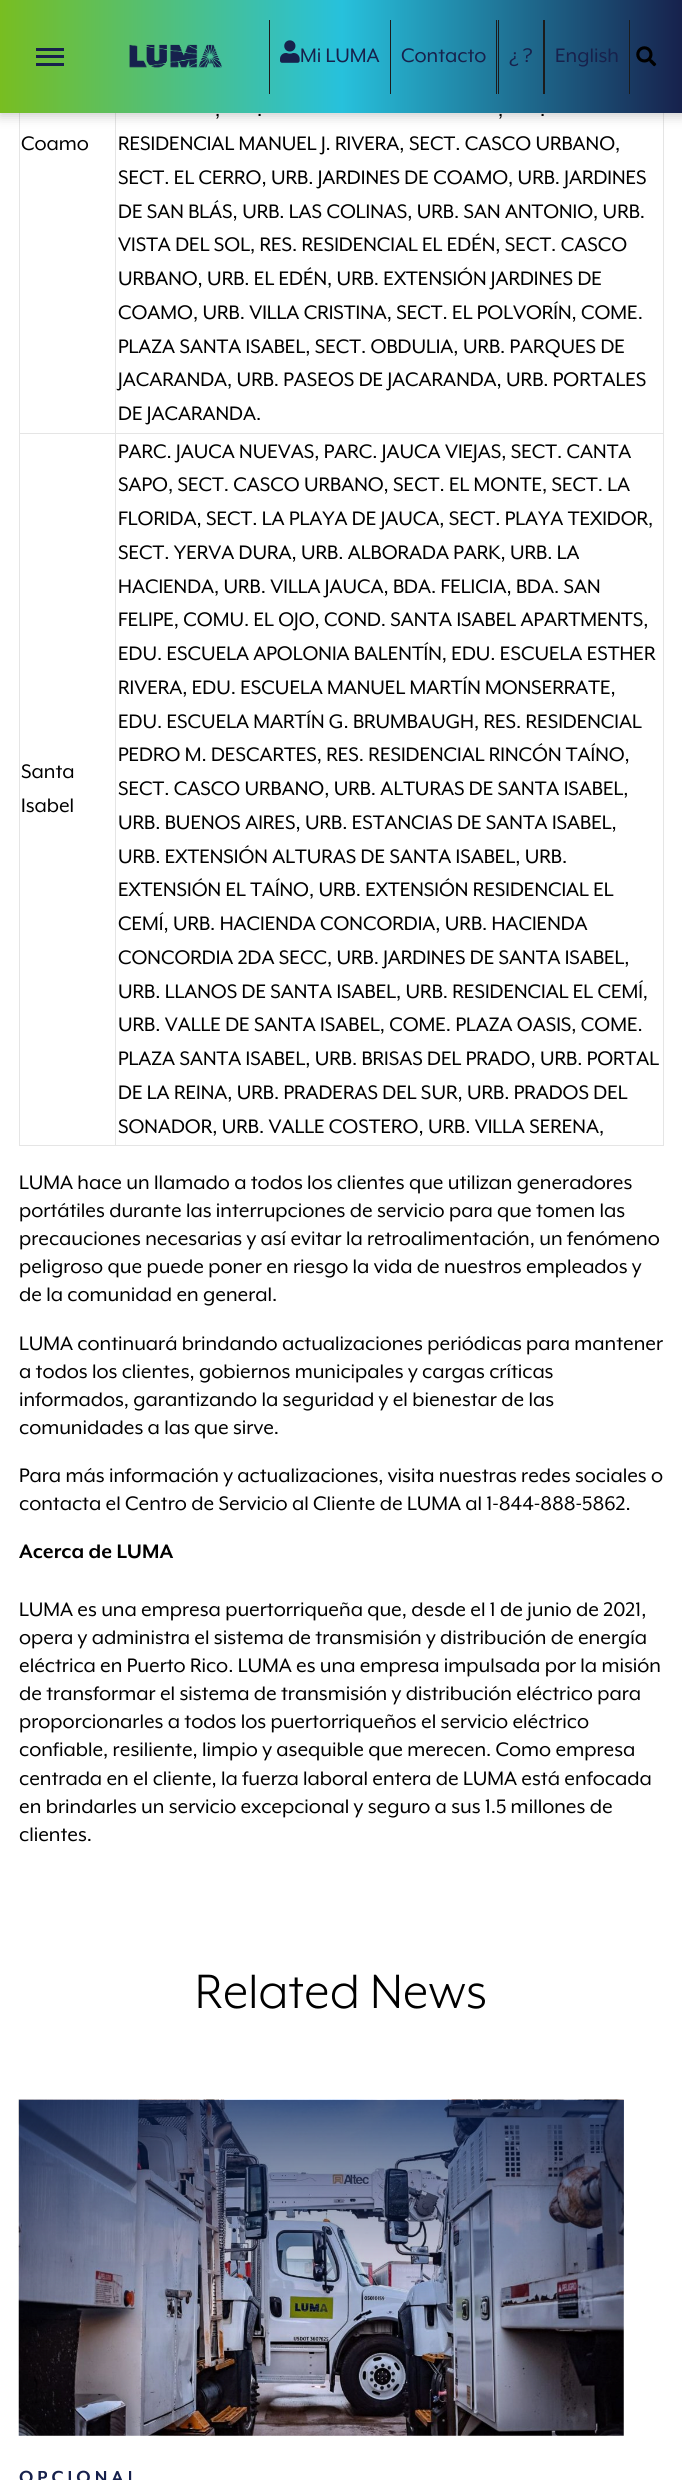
import math
import cairo



def draw_spaced(context, x, y, s, letter, word):
    context.move_to(x, y)
    for ch in s:
        context.show_text(ch)
        context.rel_move_to(letter + word * (ch == ' '), 0)


def rounded_rect(context, x, y, w, h, r):
    context.new_sub_path()
    for i, (u, v) in enumerate([(x + w - r, y + h - r), (x + r, y + h - r), (x + r, y + r), (x + w - r, y + r)]):
        context.arc(u, v, r, i * math.pi / 2, (i + 1) * math.pi / 2)
    context.close_path()


def draw_shadow(context, x, y, w, h, r, blur, alpha):
    context.push_group_with_content(cairo.Content.ALPHA)
    context.set_operator(cairo.Operator.SOURCE)
    for i in range(15, -16, -2):
        e = blur * i / 6
        if min(w, h) + 2 * e > 0:
            context.set_source_rgba(0, 0, 0, alpha * math.erfc((i - 1) / 8.5) / 2)
            rounded_rect(context, x - e, y - e, w + 2 * e, h + 2 * e, max(0, min(r + e + blur * .6, min(w, h) / 2 + e)))
            context.fill()
    context.mask(context.pop_group())


def draw_image(context, path, x, y, w, h):
    context.save()
    context.set_source_surface(cairo.ImageSurface.create_from_png(path), x, y)
    context.rectangle(x, y, w, h)
    context.fill()
    context.restore()


def draw(context):
    context.set_source_rgb(1, 1, 1)
    context.paint()
    context.set_source_rgb(229 / 255, 229 / 255, 229 / 255)
    context.rectangle(663, 113, 1, 1033)
    context.fill()
    context.rectangle(19, 1145, 645, 1)
    context.fill()
    context.rectangle(19, 113, 1, 1033)
    context.fill()
    context.rectangle(115, 433, 549, 1)
    context.fill()
    context.rectangle(115, 433, 1, 713)
    context.fill()
    context.rectangle(19, 433, 97, 1)
    context.fill()
    context.rectangle(115, 113, 1, 321)
    context.fill()
    context.set_source_rgb(0, 0, 0)
    draw_shadow(context, 0, 4, 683, 112, 0, 6, 0.2)
    gradient = cairo.LinearGradient(0, 56, 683, 56)
    gradient.add_color_stop_rgba(0, 120 / 255, 190 / 255, 33 / 255, 1)
    gradient.add_color_stop_rgba(0.5, 39 / 255, 193 / 255, 220 / 255, 1)
    gradient.add_color_stop_rgba(1, 23 / 255, 33 / 255, 76 / 255, 1)
    context.set_source(gradient)
    context.rectangle(0, 0, 682, 113)
    context.fill()
    context.set_source_rgb(23 / 255, 33 / 255, 76 / 255)
    context.rectangle(36, 48, 28, 3)
    context.fill()
    context.rectangle(36, 55, 28, 3)
    context.fill()
    context.rectangle(36, 63, 28, 3)
    context.fill()
    draw_image(context, "images/1.png", 129, 44, 93, 24)
    context.set_source_rgb(28 / 255, 28 / 255, 28 / 255)
    context.rectangle(269, 20, 1, 74)
    context.fill()
    draw_image(context, "images/2.png", 280, 40, 20, 23)
    context.rectangle(496, 20, 1, 74)
    context.fill()
    context.rectangle(390, 20, 1, 74)
    context.fill()
    context.rectangle(543, 20, 2, 74)
    context.fill()
    context.rectangle(498, 20, 1, 74)
    context.fill()
    context.rectangle(629, 20, 1, 74)
    context.fill()
    draw_image(context, "images/3.png", 636, 46, 21, 21)
    draw_image(context, "images/4.png", 18, 2099, 606, 337)
    gradient = cairo.LinearGradient(321, 2350, 321, 2100)
    gradient.add_color_stop_rgba(0.06, 3 / 255, 29 / 255, 78 / 255, 0)
    gradient.add_color_stop_rgba(0.99, 3 / 255, 29 / 255, 78 / 255, 0.7)
    context.set_source(gradient)
    context.rectangle(19, 2100, 605, 228)
    context.fill()
    context.select_font_face("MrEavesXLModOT")
    context.set_font_size(22.5)
    context.set_source_rgb(23 / 255, 33 / 255, 76 / 255)
    context.move_to(300, 62)
    context.show_text("Mi LUMA")
    context.move_to(401, 62)
    context.show_text("Contacto")
    context.move_to(509, 62)
    context.show_text("¿ ?")
    context.move_to(555, 62)
    context.show_text("English")
    context.set_source_rgb(0, 0, 0)
    context.move_to(21, 150)
    context.show_text("Coamo")
    context.move_to(215, 116)
    context.show_text(",")
    context.move_to(257, 116)
    context.show_text(".")
    context.move_to(498, 116)
    context.show_text(",")
    context.move_to(540, 116)
    context.show_text(".")
    context.move_to(118, 150)
    context.show_text("RESIDENCIAL MANUEL J. RIVERA, SECT. CASCO URBANO,")
    context.move_to(118, 184)
    context.show_text("SECT. EL CERRO, URB. JARDINES DE COAMO, URB. JARDINES")
    context.move_to(118, 218)
    context.show_text("DE SAN BLÁS, URB. LAS COLINAS, URB. SAN ANTONIO, URB.")
    context.move_to(118, 251)
    context.show_text("VISTA DEL SOL, RES. RESIDENCIAL EL EDÉN, SECT. CASCO")
    context.move_to(118, 285)
    context.show_text("URBANO, URB. EL EDÉN, URB. EXTENSIÓN JARDINES DE")
    context.move_to(118, 319)
    context.show_text("COAMO, URB. VILLA CRISTINA, SECT. EL POLVORÍN, COME.")
    context.move_to(118, 353)
    context.show_text("PLAZA SANTA ISABEL, SECT. OBDULIA, URB. PARQUES DE")
    context.move_to(118, 386)
    context.show_text("JACARANDA, URB. PASEOS DE JACARANDA, URB. PORTALES")
    context.move_to(118, 420)
    context.show_text("DE JACARANDA.")
    context.move_to(21, 778)
    context.show_text("Santa")
    context.move_to(21, 812)
    context.show_text("Isabel")
    context.move_to(118, 458)
    context.show_text("PARC. JAUCA NUEVAS, PARC. JAUCA VIEJAS, SECT. CANTA")
    context.move_to(118, 491)
    context.show_text("SAPO, SECT. CASCO URBANO, SECT. EL MONTE, SECT. LA")
    context.move_to(118, 525)
    context.show_text("FLORIDA, SECT. LA PLAYA DE JAUCA, SECT. PLAYA TEXIDOR,")
    context.move_to(118, 559)
    context.show_text("SECT. YERVA DURA, URB. ALBORADA PARK, URB. LA")
    context.move_to(118, 593)
    context.show_text("HACIENDA, URB. VILLA JAUCA, BDA. FELICIA, BDA. SAN")
    context.move_to(118, 626)
    context.show_text("FELIPE, COMU. EL OJO, COND. SANTA ISABEL APARTMENTS,")
    context.move_to(118, 660)
    context.show_text("EDU. ESCUELA APOLONIA BALENTÍN, EDU. ESCUELA ESTHER")
    context.move_to(118, 694)
    context.show_text("RIVERA, EDU. ESCUELA MANUEL MARTÍN MONSERRATE,")
    context.move_to(118, 728)
    context.show_text("EDU. ESCUELA MARTÍN G. BRUMBAUGH, RES. RESIDENCIAL")
    context.move_to(118, 761)
    context.show_text("PEDRO M. DESCARTES, RES. RESIDENCIAL RINCÓN TAÍNO,")
    context.move_to(118, 795)
    context.show_text("SECT. CASCO URBANO, URB. ALTURAS DE SANTA ISABEL,")
    context.move_to(118, 829)
    context.show_text("URB. BUENOS AIRES, URB. ESTANCIAS DE SANTA ISABEL,")
    context.move_to(118, 863)
    context.show_text("URB. EXTENSIÓN ALTURAS DE SANTA ISABEL, URB.")
    context.move_to(118, 896)
    context.show_text("EXTENSIÓN EL TAÍNO, URB. EXTENSIÓN RESIDENCIAL EL")
    context.move_to(118, 930)
    context.show_text("CEMÍ, URB. HACIENDA CONCORDIA, URB. HACIENDA")
    context.move_to(118, 964)
    context.show_text("CONCORDIA 2DA SECC, URB. JARDINES DE SANTA ISABEL,")
    context.move_to(118, 998)
    context.show_text("URB. LLANOS DE SANTA ISABEL, URB. RESIDENCIAL EL CEMÍ,")
    context.move_to(118, 1031)
    context.show_text("URB. VALLE DE SANTA ISABEL, COME. PLAZA OASIS, COME.")
    context.move_to(118, 1065)
    context.show_text("PLAZA SANTA ISABEL, URB. BRISAS DEL PRADO, URB. PORTAL")
    context.move_to(118, 1099)
    context.show_text("DE LA REINA, URB. PRADERAS DEL SUR, URB. PRADOS DEL")
    context.move_to(118, 1133)
    context.show_text("SONADOR, URB. VALLE COSTERO, URB. VILLA SERENA,")
    context.move_to(19, 1189)
    context.show_text("LUMA hace un llamado a todos los clientes que utilizan generadores")
    context.move_to(19, 1217)
    context.show_text("portátiles durante las interrupciones de servicio para que tomen las")
    context.move_to(19, 1245)
    context.show_text("precauciones necesarias y así evitar la retroalimentación, un fenómeno")
    context.move_to(19, 1273)
    context.show_text("peligroso que puede poner en riesgo la vida de nuestros empleados y")
    context.move_to(19, 1301)
    context.show_text("de la comunidad en general.")
    context.move_to(19, 1350)
    context.show_text("LUMA continuará brindando actualizaciones periódicas para mantener")
    context.move_to(19, 1378)
    context.show_text("a todos los clientes, gobiernos municipales y cargas críticas")
    context.move_to(19, 1406)
    context.show_text("informados, garantizando la seguridad y el bienestar de las")
    context.move_to(19, 1434)
    context.show_text("comunidades a las que sirve.")
    context.move_to(19, 1482)
    context.show_text("Para más información y actualizaciones, visita nuestras redes sociales o")
    context.move_to(19, 1510)
    context.show_text("contacta el Centro de Servicio al Cliente de LUMA al 1-844-888-5862.")
    context.select_font_face("MrEavesXLModOT", cairo.FontSlant.NORMAL, cairo.FontWeight.BOLD)
    context.move_to(19, 1558)
    context.show_text("Acerca de LUMA")
    context.select_font_face("MrEavesXLModOT")
    context.move_to(19, 1616)
    context.show_text("LUMA es una empresa puertorriqueña que, desde el 1 de junio de 2021,")
    context.move_to(19, 1644)
    context.show_text("opera y administra el sistema de transmisión y distribución de energía")
    context.move_to(19, 1672)
    context.show_text("eléctrica en Puerto Rico. LUMA es una empresa impulsada por la misión")
    context.move_to(19, 1700)
    context.show_text("de transformar el sistema de transmisión y distribución eléctrico para")
    context.move_to(19, 1728)
    context.show_text("proporcionarles a todos los puertorriqueños el servicio eléctrico")
    context.move_to(19, 1756)
    context.show_text("confiable, resiliente, limpio y asequible que merecen. Como empresa")
    context.move_to(19, 1785)
    context.show_text("centrada en el cliente, la fuerza laboral entera de LUMA está enfocada")
    context.move_to(19, 1813)
    context.show_text("en brindarles un servicio excepcional y seguro a sus 1.5 millones de")
    context.move_to(19, 1841)
    context.show_text("clientes.")
    context.select_font_face("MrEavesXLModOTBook")
    context.set_font_size(55.5)
    context.move_to(195, 2008)
    context.show_text("Related News")
    context.select_font_face("MrEavesXLModOT", cairo.FontSlant.NORMAL, cairo.FontWeight.BOLD)
    context.set_font_size(20)
    context.set_source_rgb(23 / 255, 33 / 255, 76 / 255)
    draw_spaced(context, 19, 2483, "OPCIONAL", 4, 0)


surface = cairo.ImageSurface(cairo.Format.RGB24, 682, 2480)
context = cairo.Context(surface)
options = cairo.FontOptions()
options.set_hint_metrics(cairo.HintMetrics.OFF)
options.set_hint_style(cairo.HintStyle.NONE)
context.set_font_options(options)
context.set_miter_limit(4)
draw(context)
surface.write_to_png("out.png")
